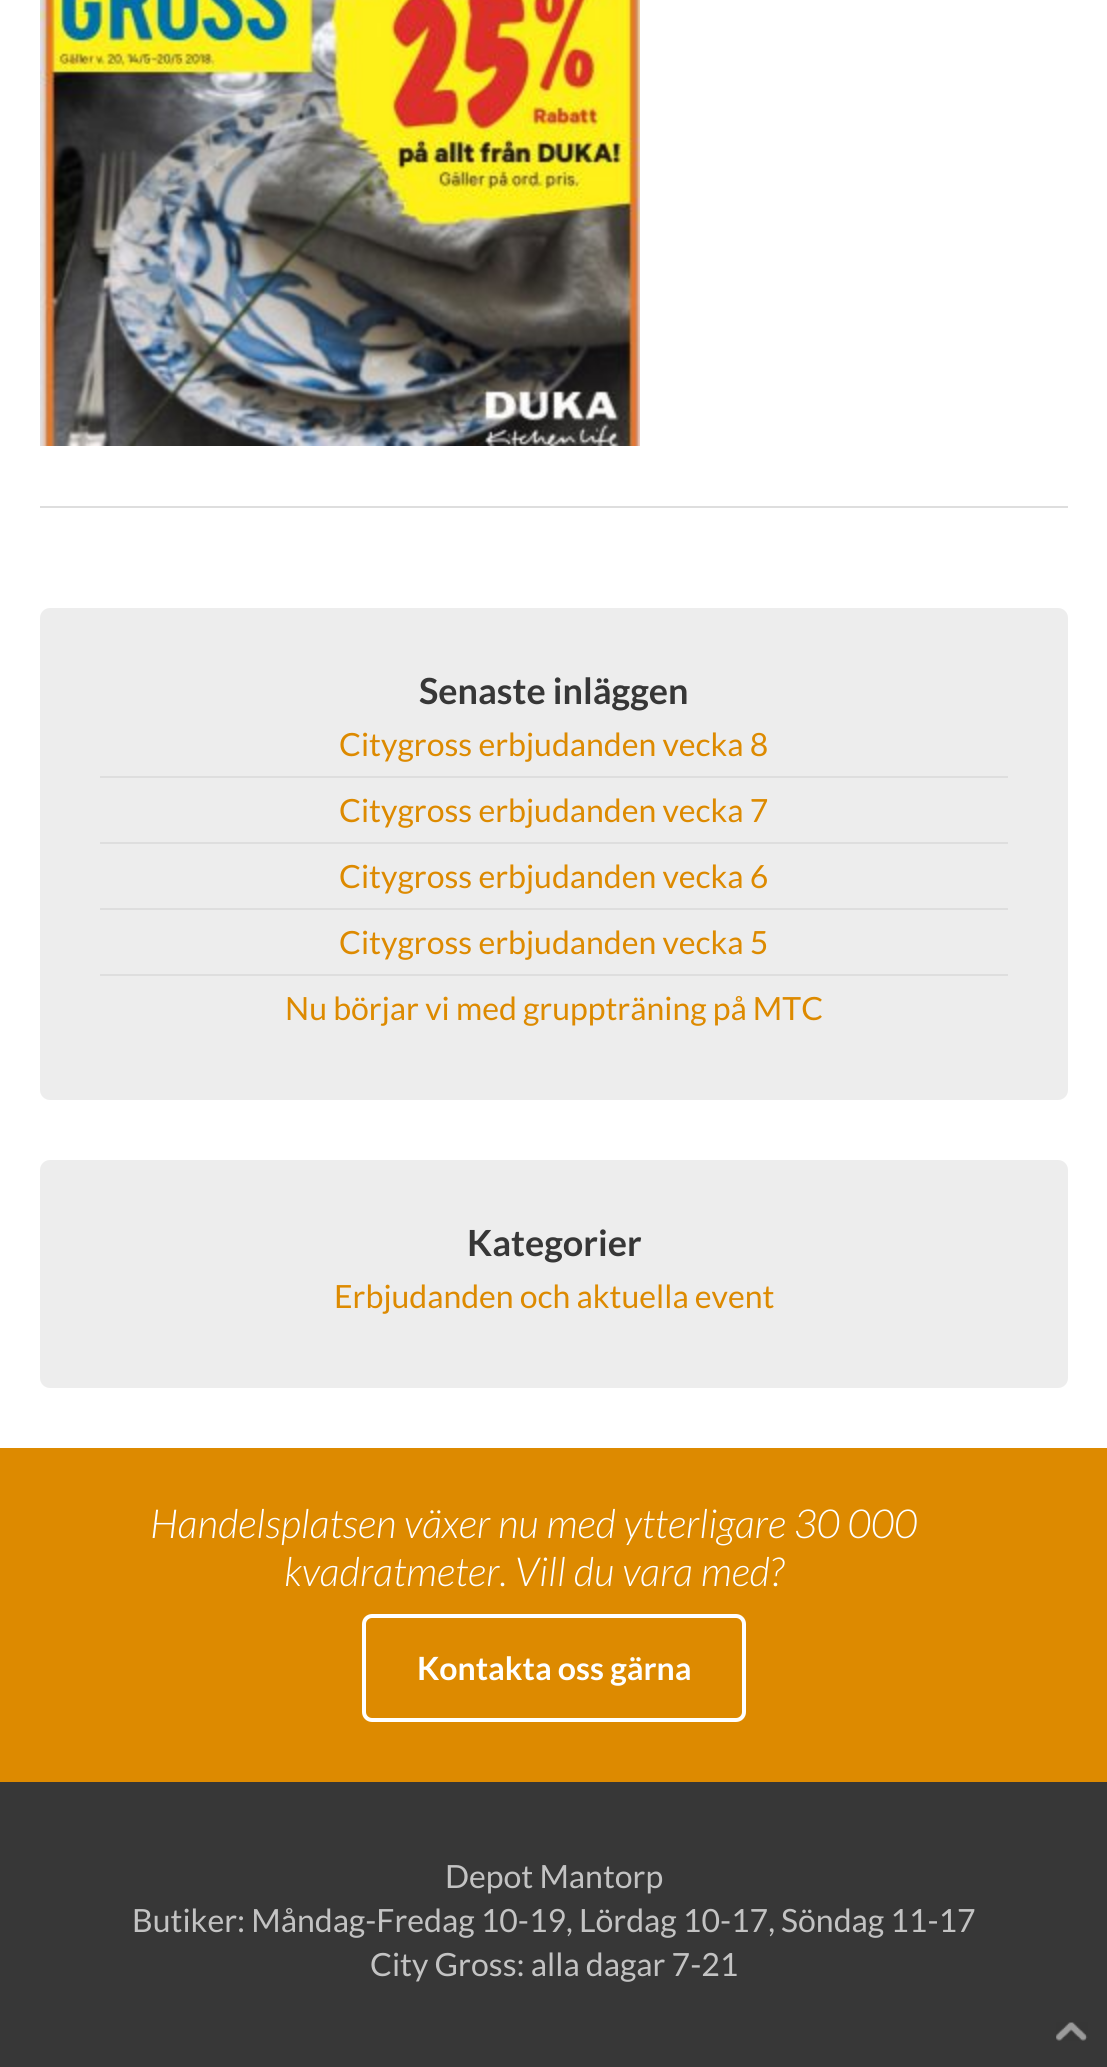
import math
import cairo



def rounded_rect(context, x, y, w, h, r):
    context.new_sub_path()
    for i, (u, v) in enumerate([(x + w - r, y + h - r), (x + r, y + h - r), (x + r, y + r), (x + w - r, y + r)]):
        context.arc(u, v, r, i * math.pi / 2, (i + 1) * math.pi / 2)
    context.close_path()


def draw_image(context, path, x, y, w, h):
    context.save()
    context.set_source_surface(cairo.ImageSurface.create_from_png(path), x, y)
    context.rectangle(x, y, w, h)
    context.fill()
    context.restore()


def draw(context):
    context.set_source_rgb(1, 1, 1)
    context.paint()
    draw_image(context, "images/1.png", 40, 0, 600, 446)
    context.set_source_rgb(222 / 255, 222 / 255, 222 / 255)
    context.rectangle(40, 506, 1028, 2)
    context.fill()
    context.set_source_rgb(237 / 255, 237 / 255, 237 / 255)
    rounded_rect(context, 40, 608, 1028, 492, 10)
    context.fill()
    context.set_source_rgb(222 / 255, 222 / 255, 222 / 255)
    context.rectangle(100, 776, 908, 2)
    context.fill()
    context.rectangle(100, 842, 908, 2)
    context.fill()
    context.rectangle(100, 908, 908, 2)
    context.fill()
    context.rectangle(100, 974, 908, 2)
    context.fill()
    context.set_source_rgb(237 / 255, 237 / 255, 237 / 255)
    rounded_rect(context, 40, 1160, 1028, 228, 10)
    context.fill()
    context.set_source_rgb(221 / 255, 138 / 255, 0)
    context.rectangle(0, 1448, 1107, 334)
    context.fill()
    rounded_rect(context, 364, 1616, 380, 104, 8)
    context.set_source_rgb(1, 1, 1)
    context.set_line_width(4)
    context.stroke()
    context.set_source_rgb(55 / 255, 55 / 255, 55 / 255)
    context.rectangle(0, 1782, 1107, 285)
    context.fill()
    draw_image(context, "images/2.png", 1056, 2022, 32, 19)
    context.select_font_face("Lato", cairo.FontSlant.NORMAL, cairo.FontWeight.BOLD)
    context.set_font_size(36)
    context.move_to(419, 704)
    context.show_text("Senaste inläggen")
    context.select_font_face("Lato")
    context.set_font_size(32)
    context.set_source_rgb(221 / 255, 138 / 255, 0)
    context.move_to(339, 756)
    context.show_text("Citygross erbjudanden vecka 8")
    context.move_to(339, 822)
    context.show_text("Citygross erbjudanden vecka 7")
    context.move_to(339, 888)
    context.show_text("Citygross erbjudanden vecka 6")
    context.move_to(339, 954)
    context.show_text("Citygross erbjudanden vecka 5")
    context.move_to(285, 1020)
    context.show_text("Nu börjar vi med gruppträning på MTC")
    context.select_font_face("Lato", cairo.FontSlant.NORMAL, cairo.FontWeight.BOLD)
    context.set_font_size(36)
    context.set_source_rgb(55 / 255, 55 / 255, 55 / 255)
    context.move_to(467, 1256)
    context.show_text("Kategorier")
    context.select_font_face("Lato")
    context.set_font_size(32)
    context.set_source_rgb(221 / 255, 138 / 255, 0)
    context.move_to(334, 1308)
    context.show_text("Erbjudanden och aktuella event")
    context.select_font_face("Lato Light", cairo.FontSlant.ITALIC)
    context.set_font_size(40)
    context.set_source_rgb(1, 1, 1)
    context.move_to(150, 1538)
    context.show_text("Handelsplatsen växer nu med ytterligare 30 000")
    context.move_to(284, 1586)
    context.show_text("kvadratmeter. Vill du vara med?")
    context.select_font_face("Lato", cairo.FontSlant.NORMAL, cairo.FontWeight.BOLD)
    context.set_font_size(32)
    context.move_to(417, 1680)
    context.show_text("Kontakta oss gärna")
    context.select_font_face("Lato")
    context.set_source_rgb(195 / 255, 195 / 255, 195 / 255)
    context.move_to(445, 1888)
    context.show_text("Depot Mantorp")
    context.move_to(132, 1932)
    context.show_text("Butiker: Måndag-Fredag 10-19, Lördag 10-17, Söndag 11-17")
    context.move_to(370, 1976)
    context.show_text("City Gross: alla dagar 7-21")


surface = cairo.ImageSurface(cairo.Format.RGB24, 1107, 2067)
context = cairo.Context(surface)
options = cairo.FontOptions()
options.set_hint_metrics(cairo.HintMetrics.OFF)
options.set_hint_style(cairo.HintStyle.NONE)
context.set_font_options(options)
context.set_miter_limit(4)
draw(context)
surface.write_to_png("out.png")
